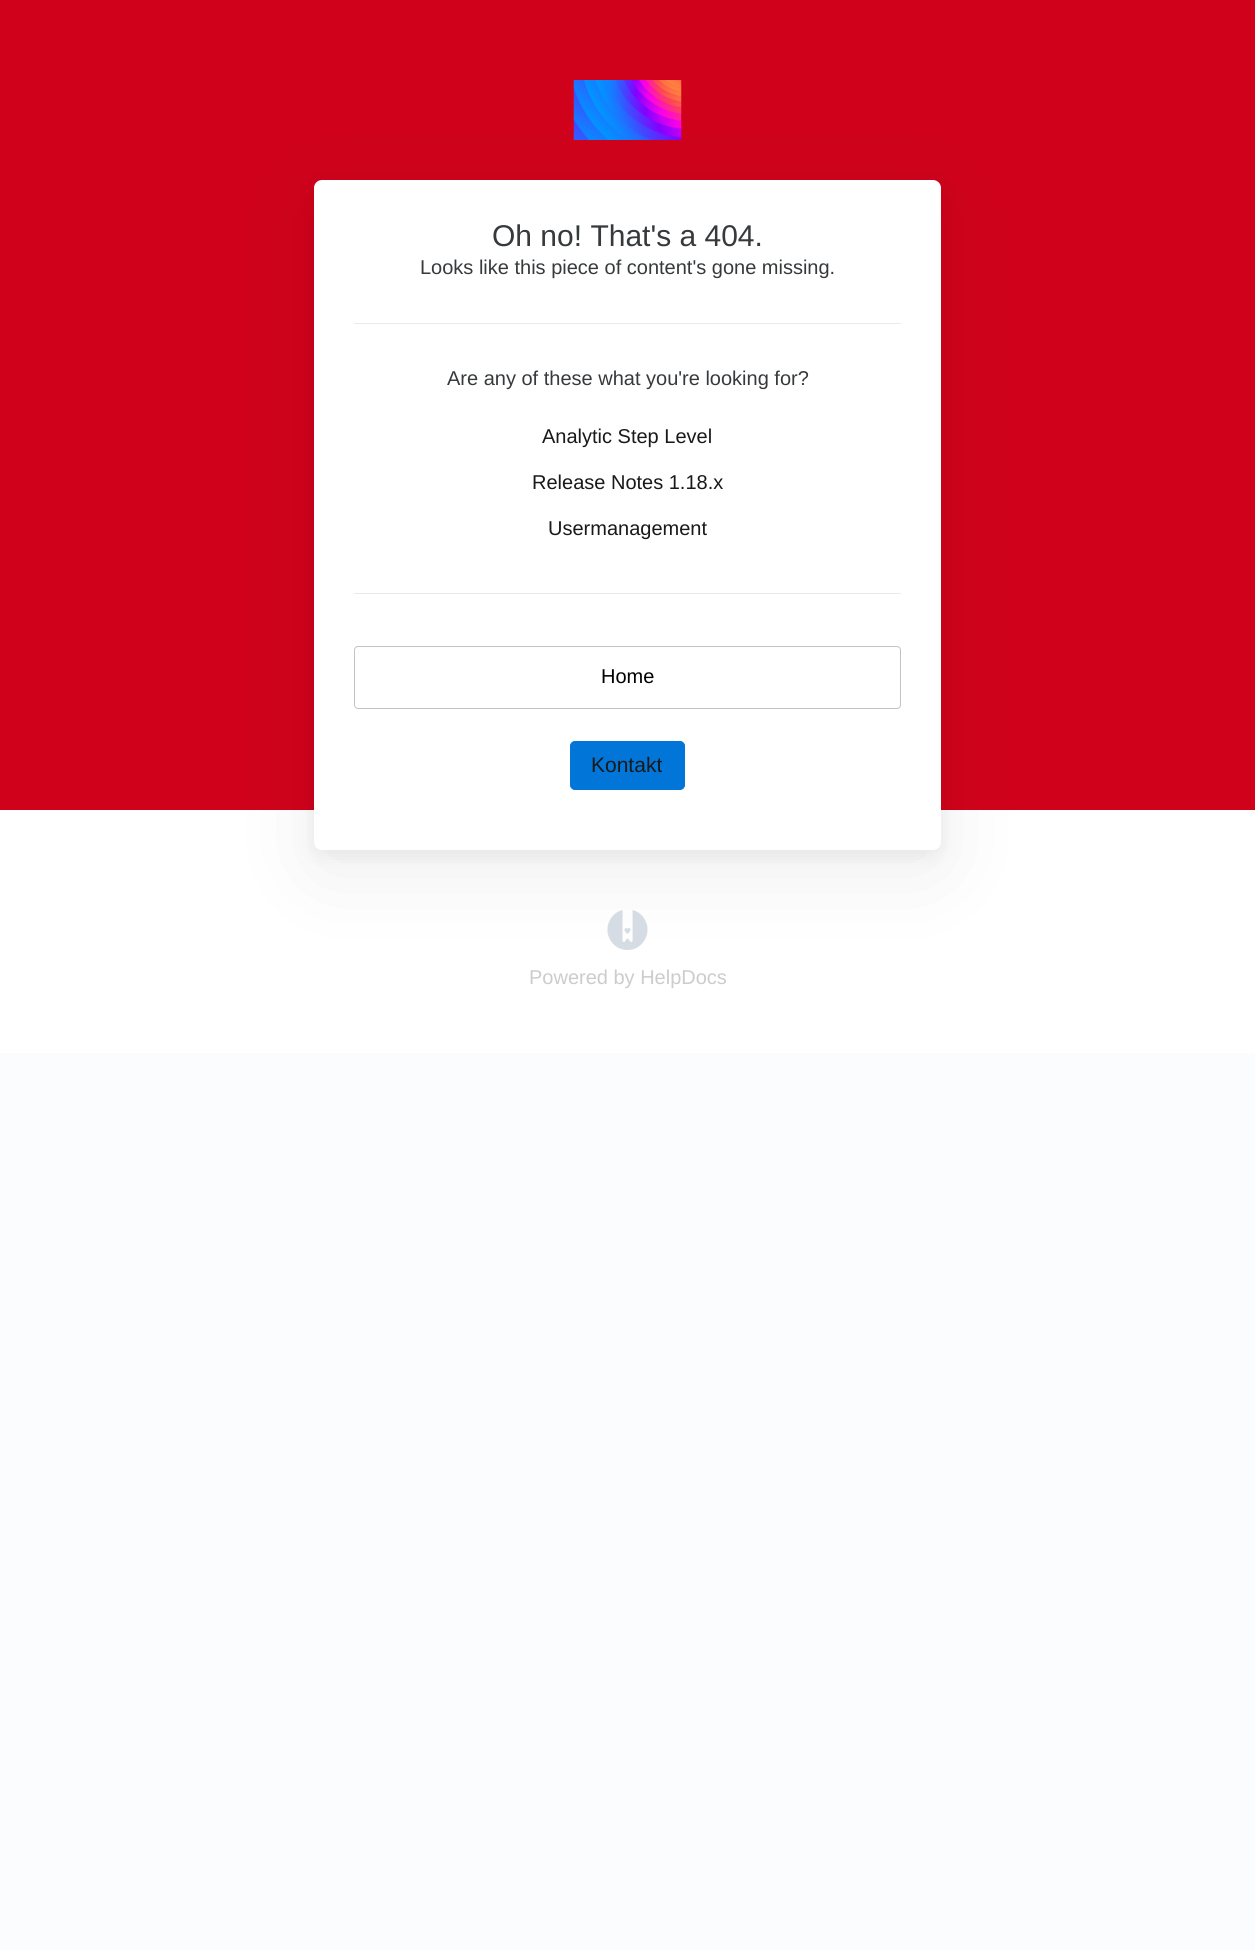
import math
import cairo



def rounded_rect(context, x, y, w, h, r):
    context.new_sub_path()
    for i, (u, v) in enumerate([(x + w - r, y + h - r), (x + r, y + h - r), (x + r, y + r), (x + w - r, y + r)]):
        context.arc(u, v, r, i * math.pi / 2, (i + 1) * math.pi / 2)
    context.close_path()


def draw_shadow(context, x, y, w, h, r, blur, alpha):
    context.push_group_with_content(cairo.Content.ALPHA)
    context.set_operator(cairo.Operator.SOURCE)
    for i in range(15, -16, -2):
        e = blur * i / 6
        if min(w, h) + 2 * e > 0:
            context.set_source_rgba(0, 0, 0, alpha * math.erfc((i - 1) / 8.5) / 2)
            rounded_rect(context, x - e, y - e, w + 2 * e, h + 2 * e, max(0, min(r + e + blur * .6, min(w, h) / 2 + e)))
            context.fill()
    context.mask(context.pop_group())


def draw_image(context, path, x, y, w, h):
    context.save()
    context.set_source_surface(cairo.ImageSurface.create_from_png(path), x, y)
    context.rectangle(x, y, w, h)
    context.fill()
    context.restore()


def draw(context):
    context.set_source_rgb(251 / 255, 252 / 255, 254 / 255)
    context.paint()
    context.set_source_rgb(1, 1, 1)
    context.rectangle(0, 810, 1255, 243)
    context.fill()
    context.set_source_rgb(208 / 255, 2 / 255, 27 / 255)
    context.rectangle(0, 0, 1255, 810)
    context.fill()
    draw_image(context, "images/1.png", 573, 80, 109, 60)
    context.set_source_rgb(0, 0, 0)
    draw_shadow(context, 314, 201, 627, 670, 8, 45.5, 0.07)
    draw_shadow(context, 314, 185, 627, 670, 8, 10, 0.06)
    context.set_source_rgb(1, 1, 1)
    rounded_rect(context, 314, 180, 627, 670, 8)
    context.fill()
    context.set_source_rgb(234 / 255, 234 / 255, 234 / 255)
    context.rectangle(354, 323, 547, 1)
    context.fill()
    context.rectangle(354, 593, 547, 1)
    context.fill()
    rounded_rect(context, 354.5, 646.5, 546, 62, 3.5)
    context.set_source_rgb(195 / 255, 195 / 255, 195 / 255)
    context.set_line_width(1)
    context.stroke()
    context.set_source_rgb(2 / 255, 117 / 255, 216 / 255)
    rounded_rect(context, 570.5, 741.5, 114, 48, 4.5)
    context.fill_preserve()
    context.stroke()
    draw_image(context, "images/2.png", 607, 910, 41, 40)
    context.select_font_face("Liberation Sans")
    context.set_font_size(30)
    context.set_source_rgb(55 / 255, 58 / 255, 60 / 255)
    context.move_to(492, 246)
    context.show_text("Oh no! That's a 404.")
    context.set_font_size(20)
    context.move_to(420, 274)
    context.show_text("Looks like this piece of content's gone missing.")
    context.move_to(447, 385)
    context.show_text("Are any of these what you're looking for?")
    context.set_source_rgb(25 / 255, 25 / 255, 25 / 255)
    context.move_to(542, 443)
    context.show_text("Analytic Step Level")
    context.move_to(532, 489)
    context.show_text("Release Notes 1.18.x")
    context.move_to(548, 535)
    context.show_text("Usermanagement")
    context.set_source_rgb(0, 0, 0)
    context.move_to(601, 683)
    context.show_text("Home")
    context.set_font_size(21)
    context.set_source_rgb(25 / 255, 25 / 255, 25 / 255)
    context.move_to(591, 772)
    context.show_text("Kontakt")
    context.set_font_size(20)
    context.set_source_rgb(204 / 255, 204 / 255, 204 / 255)
    context.move_to(529, 984)
    context.show_text("Powered by HelpDocs")


surface = cairo.ImageSurface(cairo.Format.RGB24, 1255, 1950)
context = cairo.Context(surface)
options = cairo.FontOptions()
options.set_hint_metrics(cairo.HintMetrics.OFF)
options.set_hint_style(cairo.HintStyle.NONE)
context.set_font_options(options)
context.set_miter_limit(4)
draw(context)
surface.write_to_png("out.png")
